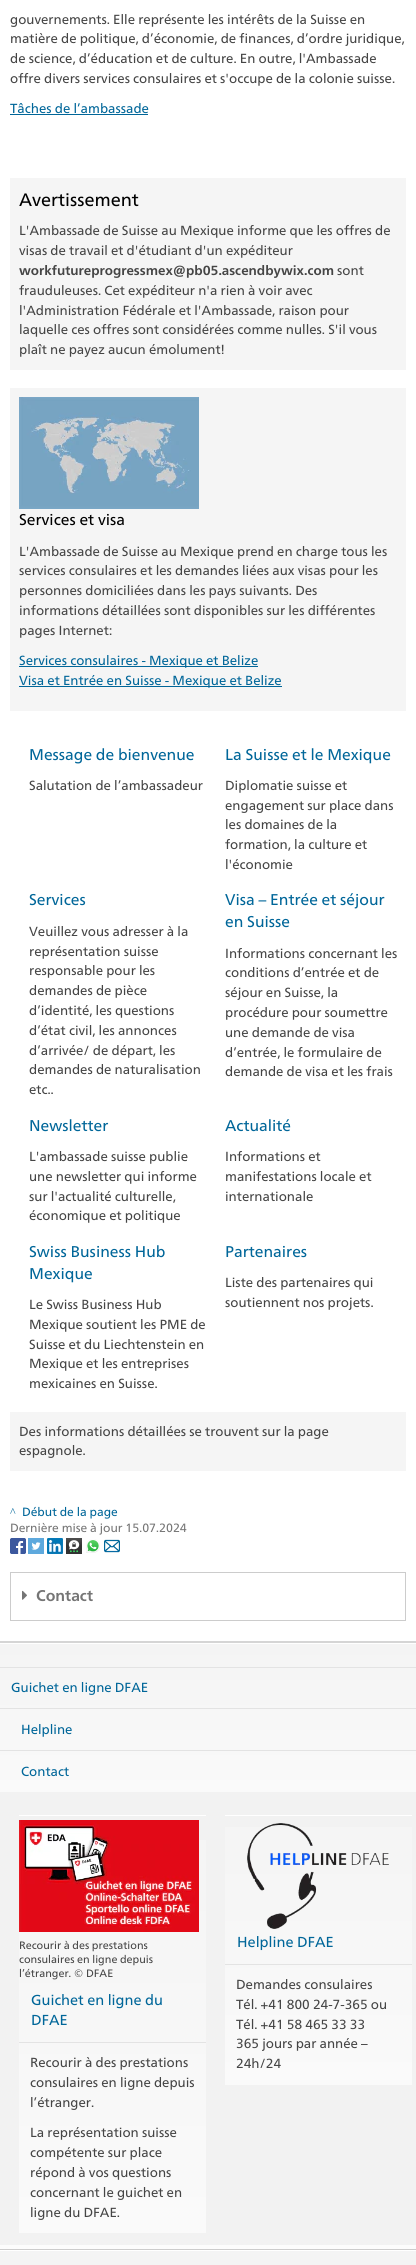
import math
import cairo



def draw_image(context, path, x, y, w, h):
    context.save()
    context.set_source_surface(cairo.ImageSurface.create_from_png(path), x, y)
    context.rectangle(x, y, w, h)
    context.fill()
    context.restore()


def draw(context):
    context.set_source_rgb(1, 1, 1)
    context.paint()
    context.set_source_rgb(0, 102 / 255, 153 / 255)
    context.rectangle(10, 114, 138, 1)
    context.fill()
    context.set_source_rgb(245 / 255, 245 / 255, 245 / 255)
    context.rectangle(10, 178, 396, 192)
    context.fill()
    context.rectangle(10, 388, 396, 323)
    context.fill()
    draw_image(context, "images/1.png", 19, 397, 180, 112)
    context.set_source_rgb(0, 102 / 255, 153 / 255)
    context.rectangle(19, 666, 239, 1)
    context.fill()
    context.rectangle(19, 686, 263, 1)
    context.fill()
    context.set_source_rgb(245 / 255, 245 / 255, 245 / 255)
    context.rectangle(10, 1412, 396, 59)
    context.fill()
    draw_image(context, "images/2.png", 10, 1538, 16, 16)
    draw_image(context, "images/3.png", 28, 1538, 16, 16)
    draw_image(context, "images/4.png", 47, 1538, 16, 16)
    draw_image(context, "images/5.png", 66, 1538, 16, 16)
    draw_image(context, "images/6.png", 86, 1539, 14, 14)
    draw_image(context, "images/7.png", 104, 1539, 16, 14)
    context.set_source_rgb(204 / 255, 204 / 255, 204 / 255)
    context.rectangle(10, 1620, 396, 1)
    context.fill()
    context.rectangle(10, 1572, 396, 1)
    context.fill()
    context.rectangle(405, 1572, 1, 48)
    context.fill()
    context.rectangle(10, 1572, 1, 48)
    context.fill()
    draw_image(context, "images/8.png", 22, 1590, 5, 10)
    context.set_source_rgb(242 / 255, 242 / 255, 242 / 255)
    context.rectangle(0, 1792, 416, 453)
    context.fill()
    context.set_source_rgb(213 / 255, 213 / 255, 213 / 255)
    context.rectangle(0, 1641, 416, 2)
    context.fill()
    gradient = cairo.LinearGradient(208, 1643, 208, 1792)
    gradient.add_color_stop_rgba(0, 244 / 255, 244 / 255, 244 / 255, 1)
    gradient.add_color_stop_rgba(1, 250 / 255, 250 / 255, 250 / 255, 1)
    context.set_source(gradient)
    context.rectangle(0, 1644, 416, 148)
    context.fill()
    context.set_source_rgb(227 / 255, 227 / 255, 227 / 255)
    context.rectangle(0, 1667, 416, 1)
    context.fill()
    context.rectangle(0, 1708, 416, 1)
    context.fill()
    context.rectangle(0, 1750, 416, 1)
    context.fill()
    gradient = cairo.LinearGradient(112, 1804, 113, 2233)
    gradient.add_color_stop_rgba(0, 244 / 255, 244 / 255, 244 / 255, 1)
    gradient.add_color_stop_rgba(1, 250 / 255, 250 / 255, 250 / 255, 1)
    context.set_source(gradient)
    context.rectangle(19, 1840, 187, 393)
    context.fill()
    draw_image(context, "images/9.png", 19, 1820, 180, 112)
    context.set_source_rgb(1, 1, 1)
    context.rectangle(19, 1815, 187, 1)
    context.fill()
    context.set_source_rgb(227 / 255, 227 / 255, 227 / 255)
    context.rectangle(19, 2042, 187, 1)
    context.fill()
    gradient = cairo.LinearGradient(319, 1804, 319, 2085)
    gradient.add_color_stop_rgba(0, 244 / 255, 244 / 255, 244 / 255, 1)
    gradient.add_color_stop_rgba(1, 250 / 255, 250 / 255, 250 / 255, 1)
    context.set_source(gradient)
    context.rectangle(225, 1827, 187, 258)
    context.fill()
    draw_image(context, "images/10.png", 247, 1823, 142, 106)
    context.set_source_rgb(1, 1, 1)
    context.rectangle(225, 1815, 187, 1)
    context.fill()
    context.set_source_rgb(227 / 255, 227 / 255, 227 / 255)
    context.rectangle(225, 1964, 187, 1)
    context.fill()
    context.set_source_rgb(252 / 255, 252 / 255, 252 / 255)
    context.rectangle(0, 2245, 416, 4)
    context.fill()
    context.set_source_rgb(204 / 255, 204 / 255, 204 / 255)
    context.rectangle(0, 2249, 416, 1)
    context.fill()
    gradient = cairo.LinearGradient(208, 2250, 208, 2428)
    gradient.add_color_stop_rgba(0, 244 / 255, 244 / 255, 244 / 255, 1)
    gradient.add_color_stop_rgba(1, 250 / 255, 250 / 255, 250 / 255, 1)
    context.set_source(gradient)
    context.rectangle(0, 2251, 416, 14)
    context.fill()
    context.select_font_face("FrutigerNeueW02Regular")
    context.set_font_size(13.2)
    context.set_source_rgb(69 / 255, 69 / 255, 69 / 255)
    context.move_to(10, 24)
    context.show_text("gouvernements. Elle représente les intérêts de la Suisse en")
    context.move_to(10, 43)
    context.show_text("matière de politique, d’économie, de finances, d’ordre juridique,")
    context.move_to(10, 63)
    context.show_text("de science, d’éducation et de culture. En outre, l'Ambassade")
    context.move_to(10, 83)
    context.show_text("offre divers services consulaires et s'occupe de la colonie suisse.")
    context.set_source_rgb(0, 102 / 255, 153 / 255)
    context.move_to(10, 113)
    context.show_text("Tâches de l’ambassade")
    context.set_font_size(18)
    context.set_source_rgb(0, 0, 0)
    context.move_to(19, 206)
    context.show_text("Avertissement")
    context.set_font_size(13.2)
    context.set_source_rgb(69 / 255, 69 / 255, 69 / 255)
    context.move_to(19, 235)
    context.show_text("L'Ambassade de Suisse au Mexique informe que les offres de")
    context.move_to(19, 255)
    context.show_text("visas de travail et d'étudiant d'un expéditeur")
    context.select_font_face("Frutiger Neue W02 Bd", cairo.FontSlant.NORMAL, cairo.FontWeight.BOLD)
    context.move_to(19, 275)
    context.show_text("workfutureprogressmex@pb05.ascendbywix.com")
    context.select_font_face("FrutigerNeueW02Regular")
    context.move_to(337, 275)
    context.show_text("sont")
    context.move_to(19, 295)
    context.show_text("frauduleuses. Cet expéditeur n'a rien à voir avec")
    context.move_to(19, 315)
    context.show_text("l'Administration Fédérale et l'Ambassade, raison pour")
    context.move_to(19, 334)
    context.show_text("laquelle ces offres sont considérées comme nulles. S'il vous")
    context.move_to(19, 354)
    context.show_text("plaît ne payez aucun émolument!")
    context.set_font_size(15.6)
    context.set_source_rgb(0, 0, 0)
    context.move_to(19, 525)
    context.show_text("Services et visa")
    context.set_font_size(13.2)
    context.set_source_rgb(69 / 255, 69 / 255, 69 / 255)
    context.move_to(19, 556)
    context.show_text("L'Ambassade de Suisse au Mexique prend en charge tous les")
    context.move_to(19, 575)
    context.show_text("services consulaires et les demandes liées aux visas pour les")
    context.move_to(19, 595)
    context.show_text("personnes domiciliées dans les pays suivants. Des")
    context.move_to(19, 615)
    context.show_text("informations détaillées sont disponibles sur les différentes")
    context.move_to(19, 635)
    context.show_text("pages Internet:")
    context.set_source_rgb(0, 102 / 255, 153 / 255)
    context.move_to(19, 665)
    context.show_text("Services consulaires - Mexique et Belize")
    context.move_to(19, 685)
    context.show_text("Visa et Entrée en Suisse - Mexique et Belize")
    context.set_font_size(15.6)
    context.move_to(29, 760)
    context.show_text("Message de bienvenue")
    context.set_font_size(13.2)
    context.set_source_rgb(69 / 255, 69 / 255, 69 / 255)
    context.move_to(29, 790)
    context.show_text("Salutation de l’ambassadeur")
    context.set_font_size(15.6)
    context.set_source_rgb(0, 102 / 255, 153 / 255)
    context.move_to(225, 760)
    context.show_text("La Suisse et le Mexique")
    context.set_font_size(13.2)
    context.set_source_rgb(69 / 255, 69 / 255, 69 / 255)
    context.move_to(225, 790)
    context.show_text("Diplomatie suisse et")
    context.move_to(225, 810)
    context.show_text("engagement sur place dans")
    context.move_to(225, 829)
    context.show_text("les domaines de la")
    context.move_to(225, 849)
    context.show_text("formation, la culture et")
    context.move_to(225, 869)
    context.show_text("l'économie")
    context.set_font_size(15.6)
    context.set_source_rgb(0, 102 / 255, 153 / 255)
    context.move_to(29, 905)
    context.show_text("Services")
    context.set_font_size(13.2)
    context.set_source_rgb(69 / 255, 69 / 255, 69 / 255)
    context.move_to(29, 936)
    context.show_text("Veuillez vous adresser à la")
    context.move_to(29, 956)
    context.show_text("représentation suisse")
    context.move_to(29, 975)
    context.show_text("responsable pour les")
    context.move_to(29, 995)
    context.show_text("demandes de pièce")
    context.move_to(29, 1015)
    context.show_text("d’identité, les questions")
    context.move_to(29, 1035)
    context.show_text("d’état civil, les annonces")
    context.move_to(29, 1055)
    context.show_text("d’arrivée/ de départ, les")
    context.move_to(29, 1074)
    context.show_text("demandes de naturalisation")
    context.move_to(29, 1094)
    context.show_text("etc..")
    context.set_font_size(15.6)
    context.set_source_rgb(0, 102 / 255, 153 / 255)
    context.move_to(225, 905)
    context.show_text("Visa – Entrée et séjour")
    context.move_to(225, 927)
    context.show_text("en Suisse")
    context.set_font_size(13.2)
    context.set_source_rgb(69 / 255, 69 / 255, 69 / 255)
    context.move_to(225, 958)
    context.show_text("Informations concernant les")
    context.move_to(225, 977)
    context.show_text("conditions d’entrée et de")
    context.move_to(225, 997)
    context.show_text("séjour en Suisse, la")
    context.move_to(225, 1017)
    context.show_text("procédure pour soumettre")
    context.move_to(225, 1037)
    context.show_text("une demande de visa")
    context.move_to(225, 1057)
    context.show_text("d’entrée, le formulaire de")
    context.move_to(225, 1076)
    context.show_text("demande de visa et les frais")
    context.set_font_size(15.6)
    context.set_source_rgb(0, 102 / 255, 153 / 255)
    context.move_to(29, 1131)
    context.show_text("Newsletter")
    context.set_font_size(13.2)
    context.set_source_rgb(69 / 255, 69 / 255, 69 / 255)
    context.move_to(29, 1161)
    context.show_text("L'ambassade suisse publie")
    context.move_to(29, 1181)
    context.show_text("une newsletter qui informe")
    context.move_to(29, 1201)
    context.show_text("sur l'actualité culturelle,")
    context.move_to(29, 1220)
    context.show_text("économique et politique")
    context.set_font_size(15.6)
    context.set_source_rgb(0, 102 / 255, 153 / 255)
    context.move_to(225, 1131)
    context.show_text("Actualité")
    context.set_font_size(13.2)
    context.set_source_rgb(69 / 255, 69 / 255, 69 / 255)
    context.move_to(225, 1161)
    context.show_text("Informations et")
    context.move_to(225, 1181)
    context.show_text("manifestations locale et")
    context.move_to(225, 1201)
    context.show_text("internationale")
    context.set_font_size(15.6)
    context.set_source_rgb(0, 102 / 255, 153 / 255)
    context.move_to(29, 1257)
    context.show_text("Swiss Business Hub")
    context.move_to(29, 1279)
    context.show_text("Mexique")
    context.set_font_size(13.2)
    context.set_source_rgb(69 / 255, 69 / 255, 69 / 255)
    context.move_to(29, 1309)
    context.show_text("Le Swiss Business Hub")
    context.move_to(29, 1329)
    context.show_text("Mexique soutient les PME de")
    context.move_to(29, 1349)
    context.show_text("Suisse et du Liechtenstein en")
    context.move_to(29, 1368)
    context.show_text("Mexique et les entreprises")
    context.move_to(29, 1388)
    context.show_text("mexicaines en Suisse.")
    context.set_font_size(15.6)
    context.set_source_rgb(0, 102 / 255, 153 / 255)
    context.move_to(225, 1257)
    context.show_text("Partenaires")
    context.set_font_size(13.2)
    context.set_source_rgb(69 / 255, 69 / 255, 69 / 255)
    context.move_to(225, 1287)
    context.show_text("Liste des partenaires qui")
    context.move_to(225, 1307)
    context.show_text("soutiennent nos projets.")
    context.move_to(19, 1436)
    context.show_text("Des informations détaillées se trouvent sur la page")
    context.move_to(19, 1455)
    context.show_text("espagnole.")
    context.select_font_face("Liberation Serif")
    context.set_font_size(12)
    context.set_source_rgb(0, 102 / 255, 153 / 255)
    context.move_to(10, 1516)
    context.show_text("^")
    context.select_font_face("FrutigerNeueW02Regular")
    context.move_to(22, 1516)
    context.show_text("Début de la page")
    context.set_source_rgb(117 / 255, 117 / 255, 117 / 255)
    context.move_to(10, 1532)
    context.show_text("Dernière mise à jour 15.07.2024")
    context.select_font_face("Frutiger Neue W02 Bd", cairo.FontSlant.NORMAL, cairo.FontWeight.BOLD)
    context.set_font_size(15.6)
    context.move_to(36, 1601)
    context.show_text("Contact")
    context.select_font_face("FrutigerNeueW02Regular")
    context.set_font_size(13.2)
    context.set_source_rgb(0, 102 / 255, 153 / 255)
    context.move_to(11, 1692)
    context.show_text("Guichet en ligne DFAE")
    context.move_to(21, 1734)
    context.show_text("Helpline")
    context.move_to(21, 1776)
    context.show_text("Contact")
    context.set_font_size(10.75)
    context.set_source_rgb(69 / 255, 69 / 255, 69 / 255)
    context.move_to(19, 1949)
    context.show_text("Recourir à des prestations")
    context.move_to(19, 1963)
    context.show_text("consulaires en ligne depuis")
    context.move_to(19, 1977)
    context.show_text("l’étranger. © DFAE")
    context.set_font_size(14.5)
    context.set_source_rgb(0, 102 / 255, 153 / 255)
    context.move_to(31, 2005)
    context.show_text("Guichet en ligne du")
    context.move_to(31, 2025)
    context.show_text("DFAE")
    context.set_font_size(13.2)
    context.set_source_rgb(69 / 255, 69 / 255, 69 / 255)
    context.move_to(30, 2067)
    context.show_text("Recourir à des prestations")
    context.move_to(30, 2087)
    context.show_text("consulaires en ligne depuis")
    context.move_to(30, 2107)
    context.show_text("l’étranger.")
    context.move_to(30, 2137)
    context.show_text("La représentation suisse")
    context.move_to(30, 2157)
    context.show_text("compétente sur place")
    context.move_to(30, 2177)
    context.show_text("répond à vos questions")
    context.move_to(30, 2197)
    context.show_text("concernant le guichet en")
    context.move_to(30, 2217)
    context.show_text("ligne du DFAE.")
    context.set_font_size(14.5)
    context.set_source_rgb(0, 102 / 255, 153 / 255)
    context.move_to(237, 1947)
    context.show_text("Helpline DFAE")
    context.set_font_size(13.2)
    context.set_source_rgb(69 / 255, 69 / 255, 69 / 255)
    context.move_to(236, 1989)
    context.show_text("Demandes consulaires")
    context.move_to(236, 2009)
    context.show_text("Tél. +41 800 24-7-365 ou")
    context.move_to(236, 2029)
    context.show_text("Tél. +41 58 465 33 33")
    context.move_to(236, 2048)
    context.show_text("365 jours par année –")
    context.move_to(236, 2068)
    context.show_text("24h/24")


surface = cairo.ImageSurface(cairo.Format.RGB24, 416, 2265)
context = cairo.Context(surface)
options = cairo.FontOptions()
options.set_hint_metrics(cairo.HintMetrics.OFF)
options.set_hint_style(cairo.HintStyle.NONE)
context.set_font_options(options)
context.set_miter_limit(4)
draw(context)
surface.write_to_png("out.png")
